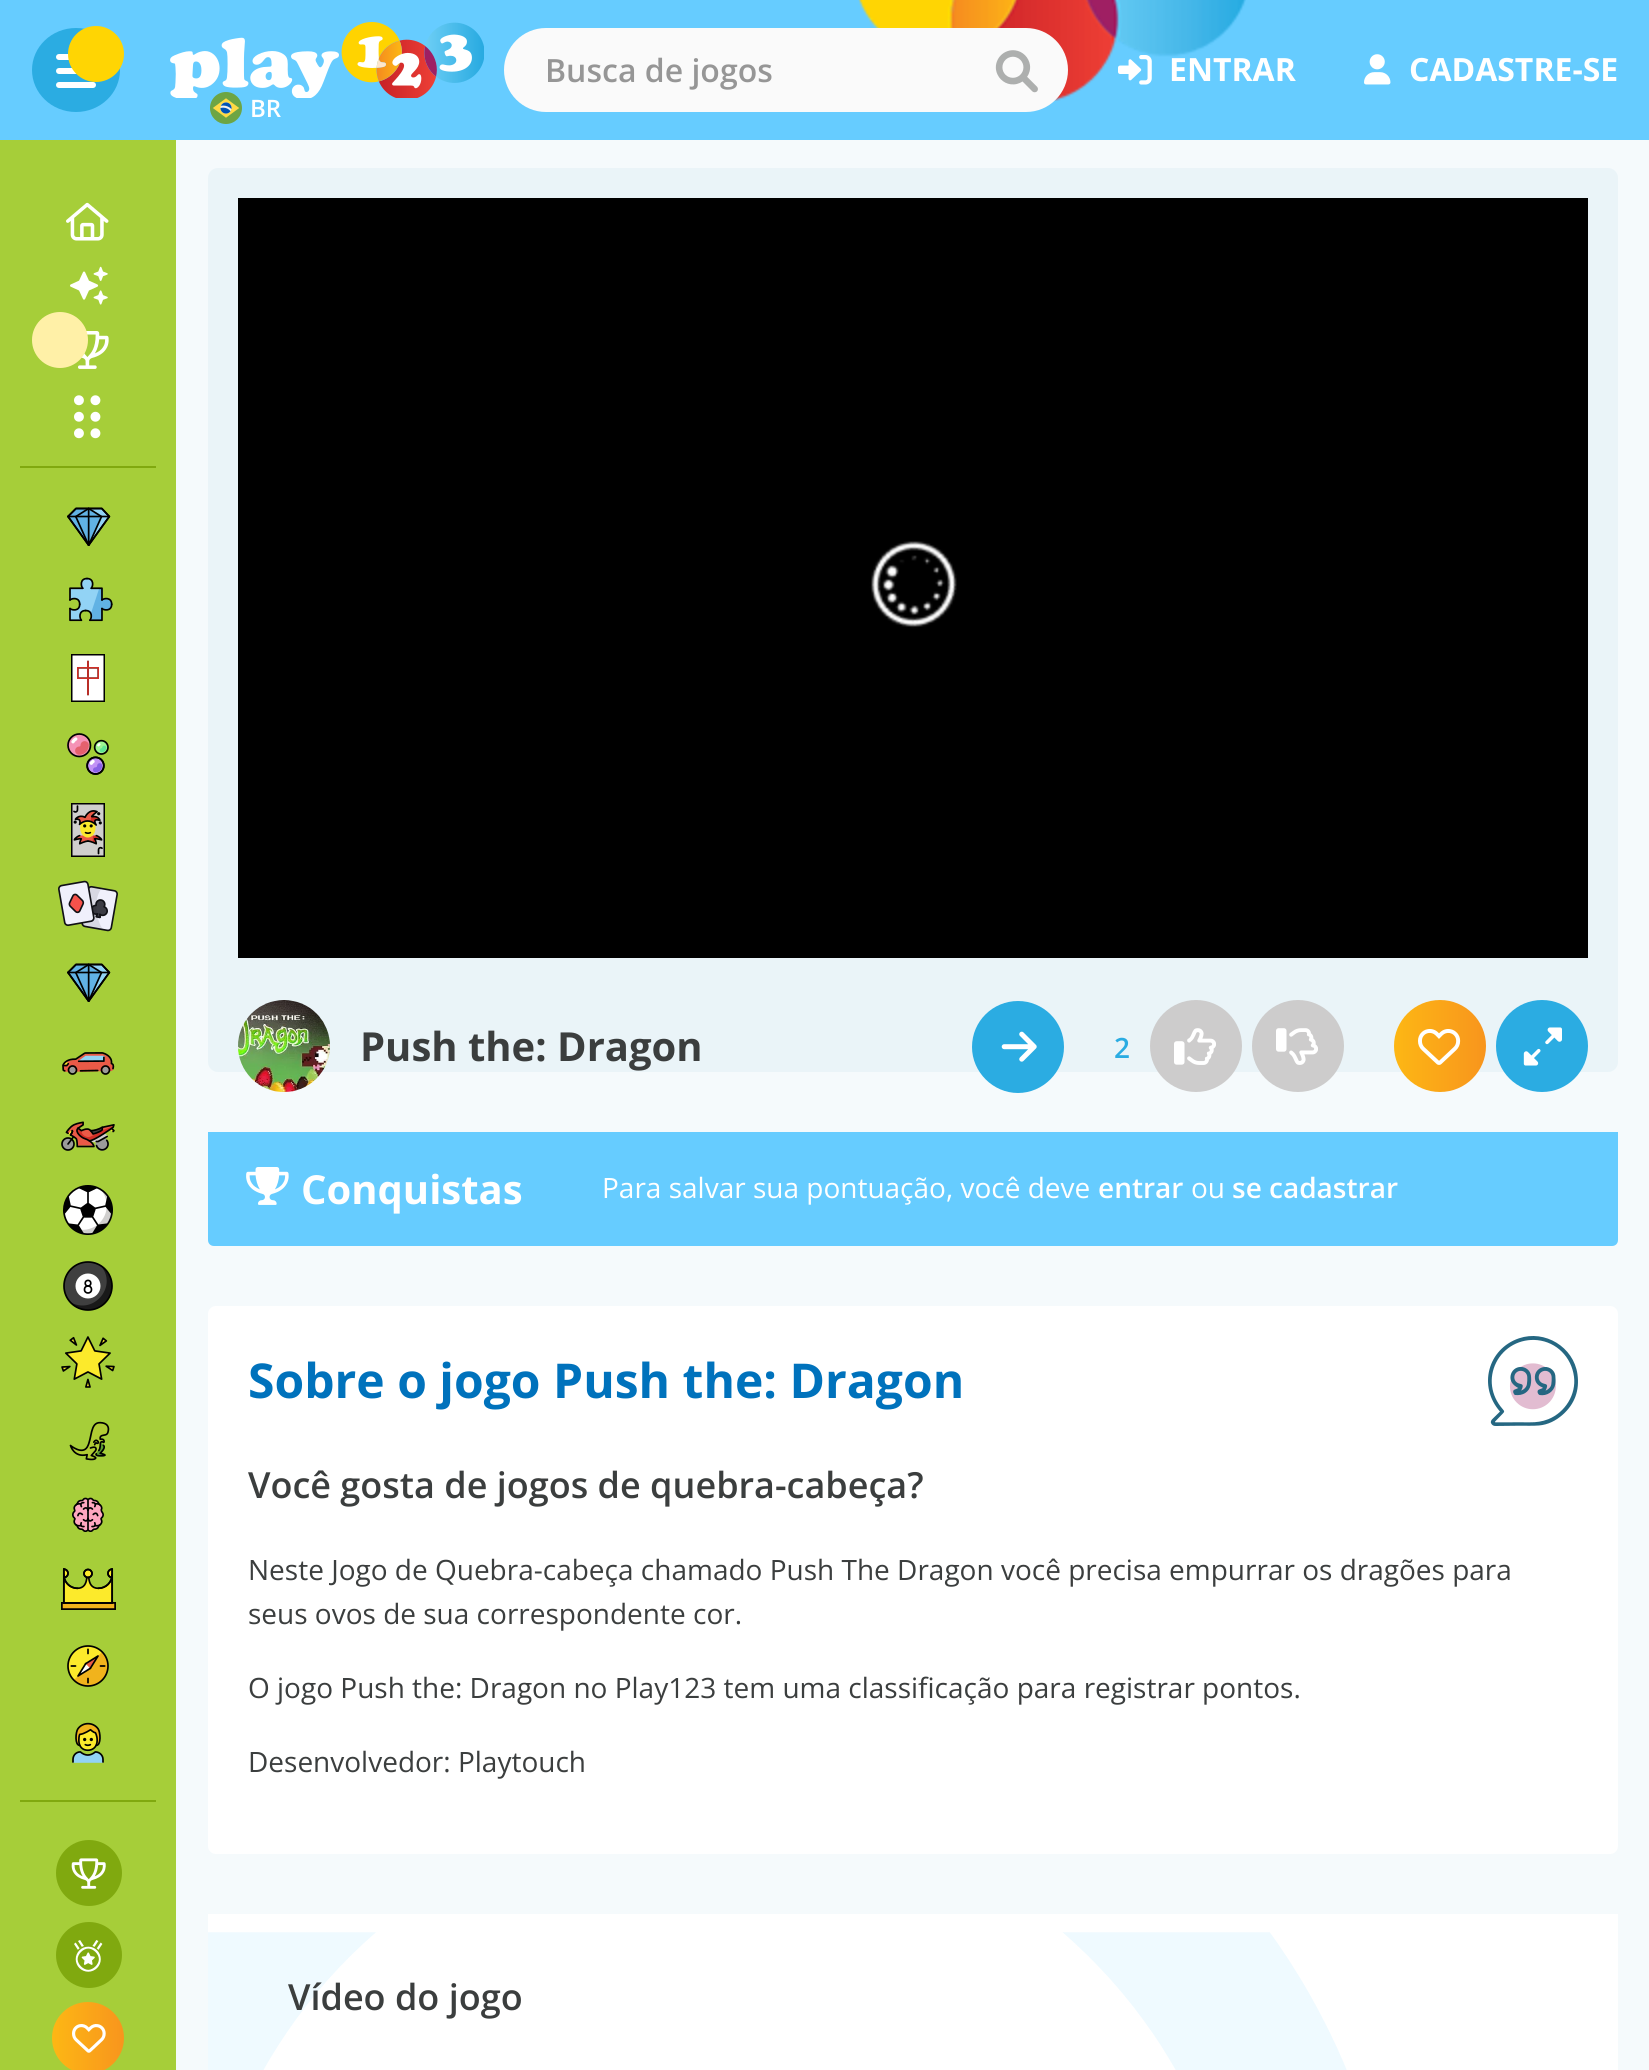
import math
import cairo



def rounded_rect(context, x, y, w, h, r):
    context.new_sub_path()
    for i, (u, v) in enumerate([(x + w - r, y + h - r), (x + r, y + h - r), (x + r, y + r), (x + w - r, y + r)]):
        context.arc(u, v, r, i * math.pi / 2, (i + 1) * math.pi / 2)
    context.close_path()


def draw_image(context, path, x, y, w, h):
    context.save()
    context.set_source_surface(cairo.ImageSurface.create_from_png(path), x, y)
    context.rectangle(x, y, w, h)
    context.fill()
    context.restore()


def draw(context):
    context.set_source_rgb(245 / 255, 250 / 255, 252 / 255)
    context.paint()
    context.set_source_rgb(102 / 255, 204 / 255, 1)
    context.rectangle(0, 0, 1649, 140)
    context.fill()
    context.set_source_rgb(43 / 255, 172 / 255, 226 / 255)
    context.new_path()
    context.move_to(76, 28)
    context.curve_to(100.5, 28, 120, 47, 120, 70)
    context.curve_to(120, 93, 100.5, 112, 76, 112)
    context.curve_to(51.5, 112, 32, 93, 32, 70)
    context.curve_to(32, 47, 51.5, 28, 76, 28)
    context.close_path()
    context.fill()
    context.set_source_rgb(1, 1, 1)
    rounded_rect(context, 56, 54, 40, 6, 3)
    context.fill()
    rounded_rect(context, 56, 68, 40, 6, 3)
    context.fill()
    context.set_source_rgb(1, 213 / 255, 3 / 255)
    context.arc(96, 54, 28, 0, 2 * math.pi)
    context.fill()
    context.set_source_rgb(1, 1, 1)
    rounded_rect(context, 56, 82, 40, 6, 3)
    context.fill()
    draw_image(context, "images/1.png", 858, 0, 388, 102)
    context.set_source_rgb(250 / 255, 250 / 255, 250 / 255)
    rounded_rect(context, 504, 28, 564, 84, 42)
    context.fill()
    draw_image(context, "images/2.png", 995, 50, 43, 43)
    draw_image(context, "images/3.png", 1118, 55, 34, 30)
    draw_image(context, "images/4.png", 1364, 54, 27, 31)
    draw_image(context, "images/5.png", 170, 22, 314, 76)
    draw_image(context, "images/6.png", 210, 92, 32, 32)
    context.set_source_rgb(166 / 255, 206 / 255, 57 / 255)
    context.rectangle(0, 140, 176, 1930)
    context.fill()
    draw_image(context, "images/7.png", 66, 202, 43, 39)
    draw_image(context, "images/8.png", 70, 266, 38, 39)
    draw_image(context, "images/9.png", 78, 331, 31, 38)
    context.set_source_rgb(1, 240 / 255, 167 / 255)
    context.arc(60, 340, 28, 0, 2 * math.pi)
    context.fill()
    context.set_source_rgb(128 / 255, 169 / 255, 15 / 255)
    context.rectangle(20, 466, 136, 2)
    context.fill()
    draw_image(context, "images/10.png", 74, 395, 27, 44)
    draw_image(context, "images/11.png", 67, 507, 44, 39)
    draw_image(context, "images/12.png", 69, 577, 44, 45)
    context.set_source_rgb(1, 1, 1)
    context.rectangle(71.75, 654.75, 32.5, 46.5)
    context.fill_preserve()
    context.set_source_rgb(0, 0, 0)
    context.set_line_width(1.5)
    context.stroke()
    context.new_path()
    context.move_to(88, 661.5)
    context.line_to(88, 694.5)
    context.set_line_width(1.7)
    context.set_line_cap(cairo.LineCap.ROUND)
    context.set_line_join(cairo.LineJoin.ROUND)
    context.stroke()
    context.rectangle(77.75, 667.75, 20.5, 10.5)
    context.set_line_width(1.5)
    context.set_line_cap(cairo.LineCap.BUTT)
    context.set_line_join(cairo.LineJoin.MITER)
    context.stroke()
    context.new_path()
    context.move_to(88, 661.5)
    context.line_to(88, 694.5)
    context.set_source_rgb(210 / 255, 47 / 255, 39 / 255)
    context.set_line_width(1.7)
    context.set_line_cap(cairo.LineCap.ROUND)
    context.set_line_join(cairo.LineJoin.ROUND)
    context.stroke()
    context.rectangle(77.75, 667.75, 20.5, 10.5)
    context.set_line_width(1.5)
    context.set_line_cap(cairo.LineCap.BUTT)
    context.set_line_join(cairo.LineJoin.MITER)
    context.stroke()
    draw_image(context, "images/13.png", 67, 733, 42, 42)
    draw_image(context, "images/14.png", 71, 803, 34, 54)
    draw_image(context, "images/15.png", 58, 880, 60, 52)
    draw_image(context, "images/11.png", 67, 963, 44, 39)
    draw_image(context, "images/16.png", 62, 1052, 53, 23)
    draw_image(context, "images/17.png", 61, 1121, 54, 30)
    draw_image(context, "images/18.png", 63, 1185, 50, 50)
    context.set_source_rgb(63 / 255, 63 / 255, 63 / 255)
    context.arc(88, 1286, 24, 0, 2 * math.pi)
    context.fill()
    context.set_source_rgb(1, 1, 1)
    context.arc(88, 1286, 12.5, 0, 2 * math.pi)
    context.fill()
    context.set_source_rgba(0, 0, 0, 0.6)
    context.new_path()
    context.move_to(100, 1265)
    context.curve_to(119, 1285, 94, 1316, 70, 1302)
    context.curve_to(88, 1322, 121, 1301, 110, 1277)
    context.curve_to(108, 1272, 105, 1268, 100, 1265)
    context.close_path()
    context.fill()
    context.arc(88, 1286, 24, 0, 2 * math.pi)
    context.set_source_rgb(0, 0, 0)
    context.set_line_width(1.7)
    context.stroke()
    context.arc(88, 1283.2, 2.8, 0, 2 * math.pi)
    context.stroke()
    context.arc(88, 1289.5, 3.5, 0, 2 * math.pi)
    context.stroke()
    draw_image(context, "images/19.png", 61, 1336, 54, 52)
    draw_image(context, "images/20.png", 69, 1421, 41, 40)
    draw_image(context, "images/21.png", 72, 1497, 32, 35)
    draw_image(context, "images/22.png", 61, 1568, 55, 42)
    draw_image(context, "images/23.png", 67, 1645, 42, 42)
    draw_image(context, "images/24.png", 72, 1722, 32, 41)
    context.set_source_rgb(128 / 255, 169 / 255, 15 / 255)
    context.rectangle(20, 1800, 136, 2)
    context.fill()
    context.arc(89, 1873, 33, 0, 2 * math.pi)
    context.fill()
    draw_image(context, "images/25.png", 71, 1858, 35, 31)
    context.arc(89, 1955, 33, 0, 2 * math.pi)
    context.fill()
    draw_image(context, "images/26.png", 74, 1940, 29, 32)
    gradient = cairo.LinearGradient(52, 2038, 124, 2038)
    gradient.add_color_stop_rgba(0, 253 / 255, 183 / 255, 20 / 255, 1)
    gradient.add_color_stop_rgba(1, 248 / 255, 149 / 255, 29 / 255, 1)
    context.set_source(gradient)
    context.arc(88, 2038, 36, 0, 2 * math.pi)
    context.fill()
    draw_image(context, "images/27.png", 72, 2024, 34, 29)
    context.set_source_rgb(234 / 255, 244 / 255, 248 / 255)
    rounded_rect(context, 208, 168, 1410, 904, 10)
    context.fill()
    draw_image(context, "images/28.png", 238, 198, 1350, 760)
    draw_image(context, "images/29.png", 238, 1000, 92, 92)
    context.set_source_rgb(43 / 255, 172 / 255, 226 / 255)
    context.new_path()
    context.move_to(1064, 1047)
    context.curve_to(1064, 1072, 1043, 1093, 1018, 1093)
    context.curve_to(993, 1093, 972, 1072, 972, 1047)
    context.curve_to(972, 1021, 993, 1001, 1018, 1001)
    context.curve_to(1043, 1001, 1064, 1021, 1064, 1047)
    context.close_path()
    context.fill()
    draw_image(context, "images/30.png", 1001, 1031, 36, 31)
    context.set_source_rgb(205 / 255, 204 / 255, 204 / 255)
    context.arc(1196, 1046, 46, 0, 2 * math.pi)
    context.fill()
    draw_image(context, "images/31.png", 1174, 1028, 42, 37)
    context.arc(1298, 1046, 46, 0, 2 * math.pi)
    context.fill()
    draw_image(context, "images/32.png", 1276, 1028, 42, 37)
    gradient = cairo.LinearGradient(1394, 1046, 1486, 1046)
    gradient.add_color_stop_rgba(0, 253 / 255, 183 / 255, 20 / 255, 1)
    gradient.add_color_stop_rgba(1, 248 / 255, 149 / 255, 29 / 255, 1)
    context.set_source(gradient)
    context.arc(1440, 1046, 46, 0, 2 * math.pi)
    context.fill()
    draw_image(context, "images/33.png", 1418, 1029, 43, 36)
    context.set_source_rgb(43 / 255, 172 / 255, 226 / 255)
    context.arc(1542, 1046, 46, 0, 2 * math.pi)
    context.fill()
    draw_image(context, "images/34.png", 1523, 1027, 39, 39)
    context.set_source_rgb(102 / 255, 204 / 255, 1)
    context.new_path()
    context.move_to(208, 1132)
    context.line_to(1618, 1132)
    context.line_to(1618, 1240)
    context.curve_to(1618, 1243.5, 1615.5, 1246, 1612, 1246)
    context.line_to(214, 1246)
    context.curve_to(210.5, 1246, 208, 1243.5, 208, 1240)
    context.close_path()
    context.fill()
    draw_image(context, "images/35.png", 246, 1167, 43, 38)
    context.set_source_rgb(1, 1, 1)
    rounded_rect(context, 208, 1306, 1410, 548, 8)
    context.fill()
    draw_image(context, "images/36.png", 1488, 1336, 90, 90)
    context.rectangle(208, 1914, 1410, 156)
    context.fill()
    draw_image(context, "images/37.png", 208, 1932, 1139, 138)
    context.select_font_face("Open Sans SemiBold")
    context.set_font_size(32)
    context.set_source_rgb(150 / 255, 150 / 255, 150 / 255)
    context.move_to(545, 82)
    context.show_text("Busca de jogos")
    context.select_font_face("Open Sans", cairo.FontSlant.NORMAL, cairo.FontWeight.BOLD)
    context.set_source_rgb(1, 1, 1)
    context.move_to(1169, 81)
    context.show_text("ENTRAR")
    context.move_to(1409, 81)
    context.show_text("CADASTRE-SE")
    context.select_font_face("Open Sans SemiBold")
    context.set_font_size(24)
    context.move_to(250, 117)
    context.show_text("BR")
    context.select_font_face("Open Sans", cairo.FontSlant.NORMAL, cairo.FontWeight.BOLD)
    context.set_font_size(40)
    context.set_source_rgb(59 / 255, 62 / 255, 62 / 255)
    context.move_to(360, 1061)
    context.show_text("Push the: Dragon")
    context.select_font_face("Open Sans SemiBold")
    context.set_font_size(28)
    context.set_source_rgb(43 / 255, 172 / 255, 226 / 255)
    context.move_to(1114, 1058)
    context.show_text("2")
    context.select_font_face("Open Sans", cairo.FontSlant.NORMAL, cairo.FontWeight.BOLD)
    context.set_font_size(40)
    context.set_source_rgb(1, 1, 1)
    context.move_to(301, 1204)
    context.show_text("Conquistas")
    context.select_font_face("Open Sans")
    context.set_font_size(28)
    context.move_to(602, 1198)
    context.show_text("Para salvar sua pontuação, você deve")
    context.select_font_face("Open Sans SemiBold")
    context.move_to(1098, 1198)
    context.show_text("entrar")
    context.select_font_face("Open Sans")
    context.move_to(1191, 1198)
    context.show_text("ou")
    context.select_font_face("Open Sans SemiBold")
    context.move_to(1232, 1198)
    context.show_text("se cadastrar")
    context.select_font_face("Open Sans", cairo.FontSlant.NORMAL, cairo.FontWeight.BOLD)
    context.set_font_size(48)
    context.set_source_rgb(0, 114 / 255, 188 / 255)
    context.move_to(248, 1398)
    context.show_text("Sobre o jogo Push the: Dragon")
    context.select_font_face("Open Sans SemiBold")
    context.set_font_size(36)
    context.set_source_rgb(59 / 255, 62 / 255, 62 / 255)
    context.move_to(248, 1498)
    context.show_text("Você gosta de jogos de quebra-cabeça?")
    context.select_font_face("Open Sans")
    context.set_font_size(28)
    context.move_to(248, 1580)
    context.show_text("Neste Jogo de Quebra-cabeça chamado Push The Dragon você precisa empurrar os dragões para")
    context.move_to(248, 1624)
    context.show_text("seus ovos de sua correspondente cor.")
    context.move_to(248, 1698)
    context.show_text("O jogo Push the: Dragon no Play123 tem uma classificação para registrar pontos.")
    context.move_to(248, 1772)
    context.show_text("Desenvolvedor: Playtouch")
    context.select_font_face("Open Sans SemiBold")
    context.set_font_size(36)
    context.move_to(288, 2010)
    context.show_text("Vídeo do jogo")


surface = cairo.ImageSurface(cairo.Format.RGB24, 1649, 2070)
context = cairo.Context(surface)
options = cairo.FontOptions()
options.set_hint_metrics(cairo.HintMetrics.OFF)
options.set_hint_style(cairo.HintStyle.NONE)
context.set_font_options(options)
context.set_miter_limit(4)
draw(context)
surface.write_to_png("out.png")
